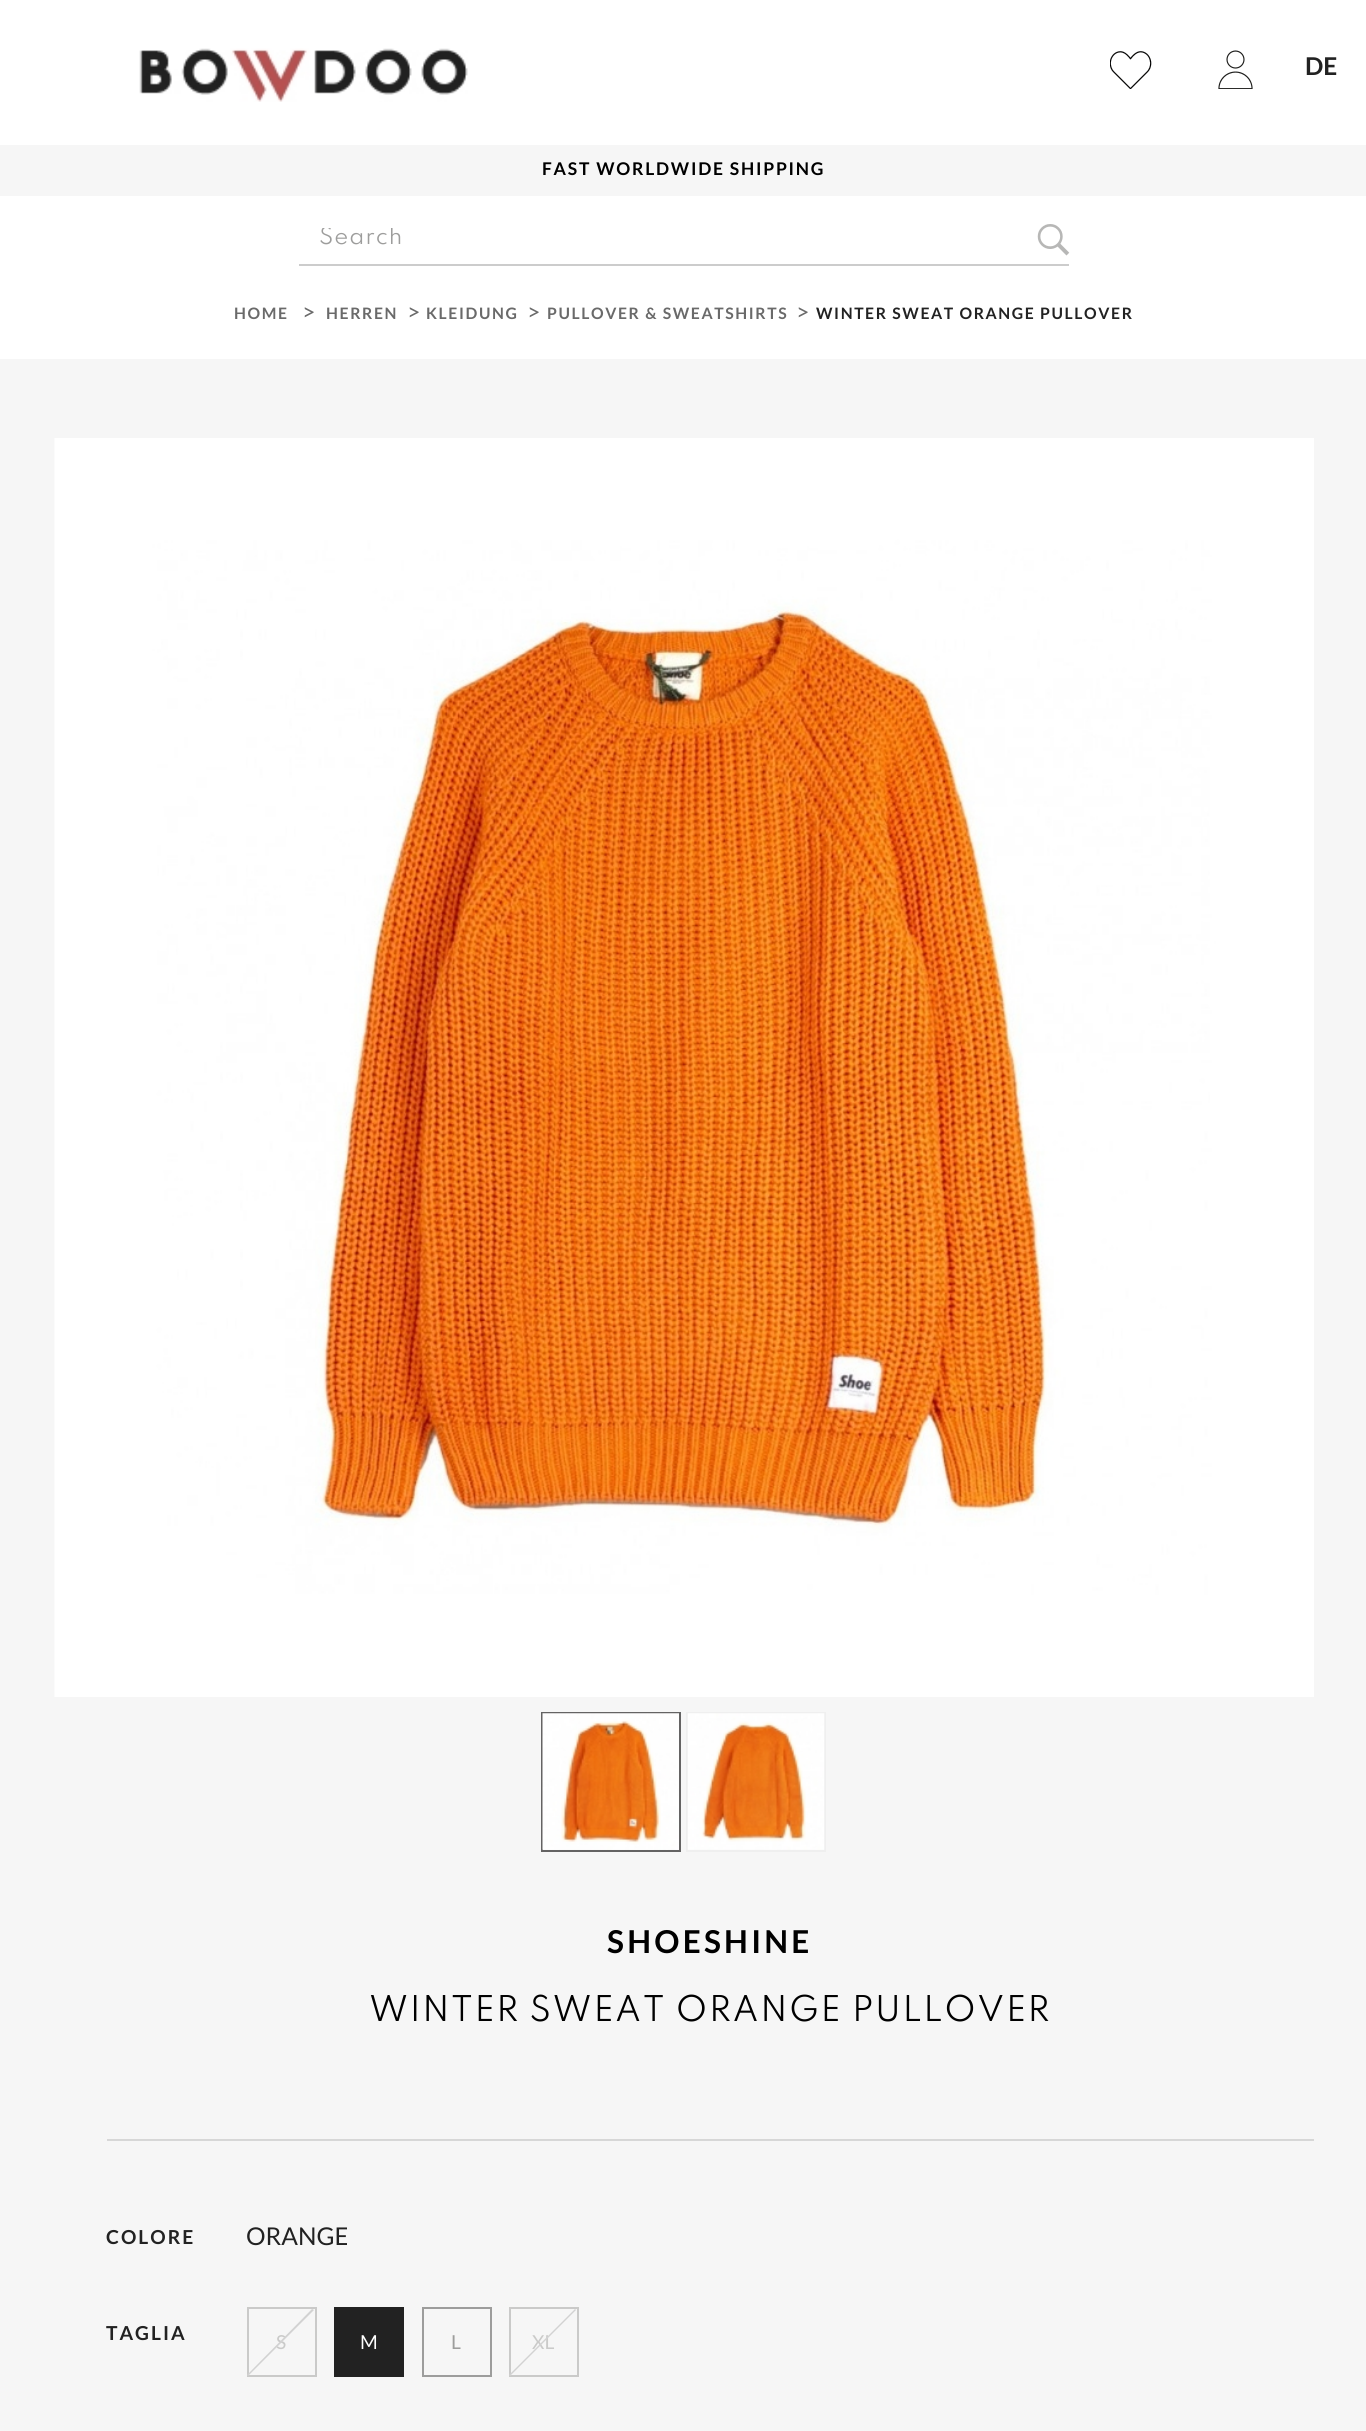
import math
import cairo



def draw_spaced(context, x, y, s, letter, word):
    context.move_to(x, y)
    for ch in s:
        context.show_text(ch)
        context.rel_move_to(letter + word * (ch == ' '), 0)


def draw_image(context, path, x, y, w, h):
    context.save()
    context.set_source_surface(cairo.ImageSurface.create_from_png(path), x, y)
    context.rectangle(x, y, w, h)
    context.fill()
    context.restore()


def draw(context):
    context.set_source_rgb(1, 1, 1)
    context.paint()
    context.set_source_rgb(246 / 255, 246 / 255, 246 / 255)
    context.rectangle(0, 145, 1366, 51)
    context.fill()
    draw_image(context, "images/1.png", 139, 48, 329, 54)
    draw_image(context, "images/2.png", 1110, 51, 42, 38)
    draw_image(context, "images/3.png", 1218, 50, 35, 39)
    context.set_source_rgb(204 / 255, 204 / 255, 204 / 255)
    context.rectangle(299, 264, 770, 2)
    context.fill()
    draw_image(context, "images/4.png", 1037, 224, 33, 32)
    context.set_source_rgb(246 / 255, 246 / 255, 246 / 255)
    context.rectangle(0, 359, 1366, 2072)
    context.fill()
    draw_image(context, "images/5.png", 54, 438, 1260, 1259)
    context.rectangle(542, 1713, 138, 138)
    context.set_source_rgb(100 / 255, 99 / 255, 99 / 255)
    context.stroke()
    draw_image(context, "images/6.png", 542, 1713, 137, 137)
    context.rectangle(687, 1713, 138, 138)
    context.set_source_rgb(239 / 255, 239 / 255, 239 / 255)
    context.stroke()
    draw_image(context, "images/7.png", 687, 1713, 138, 137)
    context.set_source_rgb(215 / 255, 215 / 255, 215 / 255)
    context.rectangle(107, 2139, 1207, 2)
    context.fill()
    context.rectangle(248, 2308, 68, 68)
    context.set_source_rgb(202 / 255, 202 / 255, 201 / 255)
    context.stroke()
    context.set_source_rgb(34 / 255, 34 / 255, 34 / 255)
    context.rectangle(334, 2307, 70, 70)
    context.fill()
    context.rectangle(423, 2308, 68, 68)
    context.set_source_rgb(157 / 255, 157 / 255, 156 / 255)
    context.stroke()
    context.rectangle(510, 2308, 68, 68)
    context.set_source_rgb(202 / 255, 202 / 255, 201 / 255)
    context.stroke()
    context.select_font_face("Lato", cairo.FontSlant.NORMAL, cairo.FontWeight.BOLD)
    context.set_font_size(24.5)
    context.set_source_rgb(34 / 255, 34 / 255, 34 / 255)
    context.move_to(1305, 75)
    context.show_text("DE")
    context.set_font_size(17.5)
    context.set_source_rgb(0, 0, 0)
    draw_spaced(context, 542, 175, "FAST WORLDWIDE SHIPPING", 1.75, 0)
    context.save()
    context.rectangle(320, 228, 728, 24)
    context.clip()
    context.select_font_face("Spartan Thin")
    context.set_font_size(21)
    context.set_source_rgb(157 / 255, 157 / 255, 156 / 255)
    draw_spaced(context, 319, 244, "Search", 1, 0)
    context.restore()
    context.set_font_size(15.75)
    context.set_source_rgb(106 / 255, 106 / 255, 106 / 255)
    draw_spaced(context, 234, 319, "HOME", 1.6, 0)
    context.select_font_face("Lato")
    context.set_font_size(23)
    draw_spaced(context, 302, 320, ">", 1.6, 0)
    context.select_font_face("Lato", cairo.FontSlant.NORMAL, cairo.FontWeight.BOLD)
    context.set_font_size(15.75)
    draw_spaced(context, 326, 319, "HERREN", 1.6, 0)
    context.select_font_face("Lato")
    context.set_font_size(23)
    draw_spaced(context, 407, 320, ">", 1.6, 0)
    context.select_font_face("Lato", cairo.FontSlant.NORMAL, cairo.FontWeight.BOLD)
    context.set_font_size(15.75)
    draw_spaced(context, 426, 319, "KLEIDUNG", 1.6, 0)
    context.select_font_face("Lato")
    context.set_font_size(23)
    draw_spaced(context, 527, 320, ">", 1.6, 0)
    context.select_font_face("Lato", cairo.FontSlant.NORMAL, cairo.FontWeight.BOLD)
    context.set_font_size(15.75)
    draw_spaced(context, 547, 319, "PULLOVER & SWEATSHIRTS", 1.6, 0)
    context.select_font_face("Lato")
    context.set_font_size(23)
    draw_spaced(context, 796, 320, ">", 1.6, 0)
    context.select_font_face("Lato", cairo.FontSlant.NORMAL, cairo.FontWeight.BOLD)
    context.set_font_size(15.75)
    context.set_source_rgb(34 / 255, 34 / 255, 34 / 255)
    draw_spaced(context, 816, 319, "WINTER SWEAT ORANGE PULLOVER", 1.6, 0)
    context.set_font_size(31.5)
    context.set_source_rgb(0, 0, 0)
    draw_spaced(context, 607, 1953, "SHOESHINE", 3.25, 0)
    context.select_font_face("Spartan Thin")
    draw_spaced(context, 369, 2021, "WINTER SWEAT ORANGE PULLOVER", 1.6, 0)
    context.select_font_face("Lato", cairo.FontSlant.NORMAL, cairo.FontWeight.BOLD)
    context.set_font_size(19.25)
    context.set_source_rgb(34 / 255, 34 / 255, 34 / 255)
    draw_spaced(context, 106, 2244, "COLORE", 2, 0)
    context.select_font_face("Lato")
    context.set_font_size(24.5)
    context.move_to(246, 2245)
    context.show_text("ORANGE")
    context.select_font_face("Lato", cairo.FontSlant.NORMAL, cairo.FontWeight.BOLD)
    context.set_font_size(19.25)
    draw_spaced(context, 106, 2340, "TAGLIA", 2, 0)
    context.select_font_face("Lato")
    context.set_source_rgb(202 / 255, 202 / 255, 201 / 255)
    context.move_to(276, 2349)
    context.show_text("S")
    context.set_source_rgb(210 / 255, 210 / 255, 210 / 255)
    context.new_path()
    context.move_to(247, 2375)
    context.line_to(312, 2309)
    context.line_to(314, 2310)
    context.line_to(248, 2376)
    context.close_path()
    context.fill()
    context.set_source_rgb(1, 1, 1)
    context.move_to(360, 2349)
    context.show_text("M")
    context.set_source_rgb(157 / 255, 157 / 255, 156 / 255)
    context.move_to(451, 2349)
    context.show_text("L")
    context.set_source_rgb(202 / 255, 202 / 255, 201 / 255)
    context.move_to(532, 2349)
    context.show_text("XL")
    context.set_source_rgb(210 / 255, 210 / 255, 210 / 255)
    context.new_path()
    context.move_to(509, 2375)
    context.line_to(575, 2309)
    context.line_to(576, 2310)
    context.line_to(510, 2376)
    context.close_path()
    context.fill()


surface = cairo.ImageSurface(cairo.Format.RGB24, 1366, 2431)
context = cairo.Context(surface)
options = cairo.FontOptions()
options.set_hint_metrics(cairo.HintMetrics.OFF)
options.set_hint_style(cairo.HintStyle.NONE)
context.set_font_options(options)
context.set_miter_limit(4)
draw(context)
surface.write_to_png("out.png")
